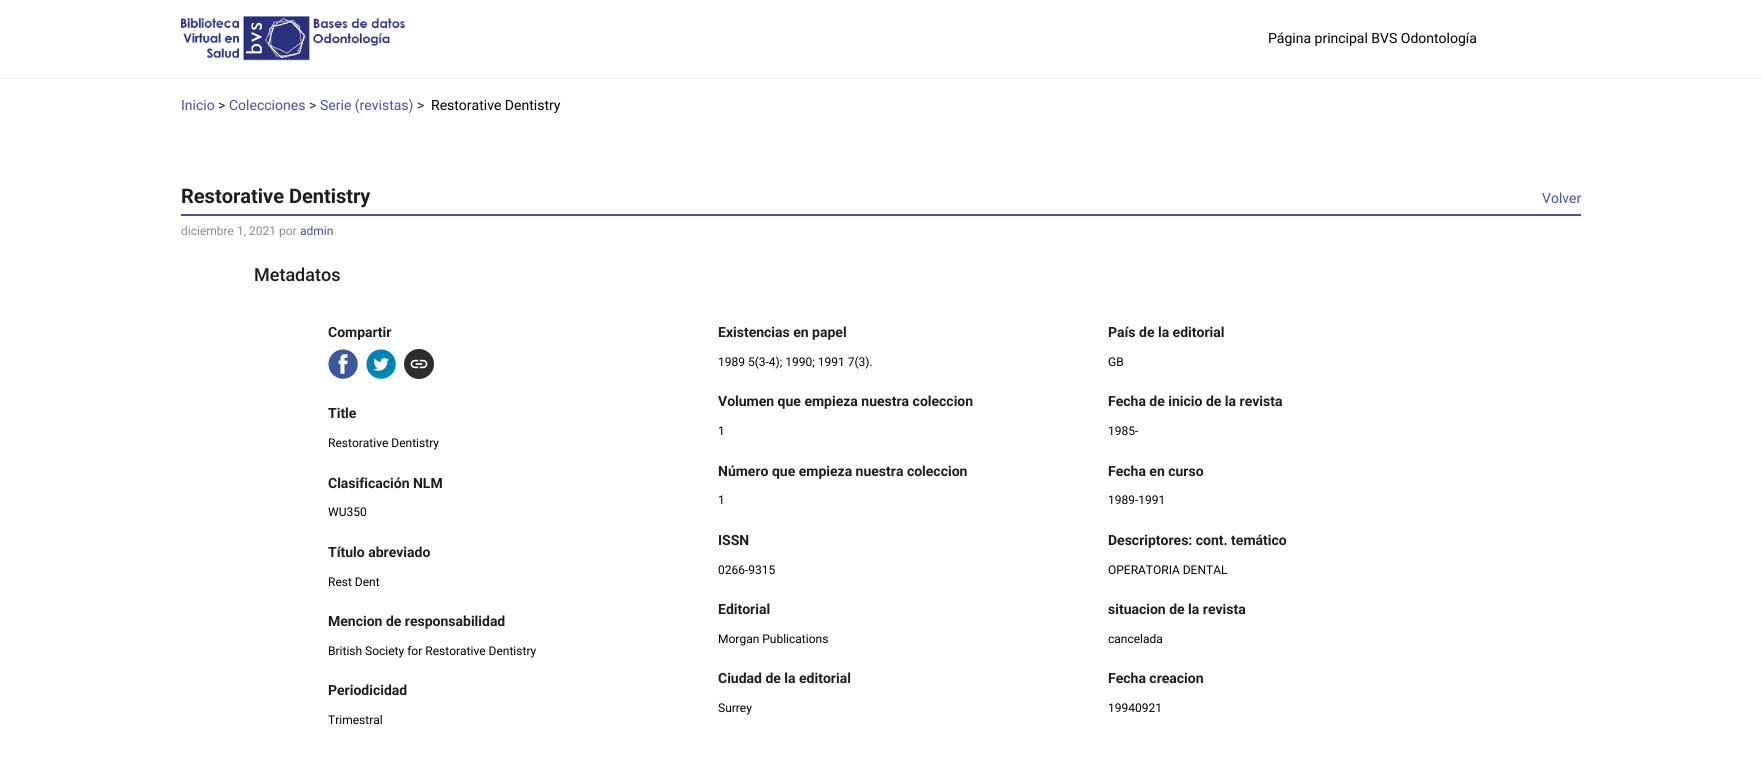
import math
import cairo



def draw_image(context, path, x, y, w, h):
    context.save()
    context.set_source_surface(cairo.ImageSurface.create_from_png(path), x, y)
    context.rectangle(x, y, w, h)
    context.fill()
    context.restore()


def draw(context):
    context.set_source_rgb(1, 1, 1)
    context.paint()
    context.set_source_rgb(237 / 255, 237 / 255, 237 / 255)
    context.rectangle(0, 78, 1762, 1)
    context.fill()
    draw_image(context, "images/1.png", 181, 16, 225, 45)
    context.set_source_rgb(71 / 255, 81 / 255, 163 / 255)
    context.rectangle(181, 214, 1400, 2)
    context.fill()
    draw_image(context, "images/2.png", 328, 349, 30, 30)
    draw_image(context, "images/3.png", 366, 349, 30, 30)
    draw_image(context, "images/4.png", 404, 349, 30, 30)
    context.select_font_face("Roboto")
    context.set_font_size(14)
    context.set_source_rgb(0, 0, 0)
    context.move_to(1268, 43)
    context.show_text("Página principal BVS Odontología")
    context.set_source_rgb(71 / 255, 81 / 255, 163 / 255)
    context.move_to(181, 110)
    context.show_text("Inicio")
    context.set_source_rgb(33 / 255, 37 / 255, 41 / 255)
    context.move_to(218, 110)
    context.show_text(">")
    context.set_source_rgb(71 / 255, 81 / 255, 163 / 255)
    context.move_to(229, 110)
    context.show_text("Colecciones")
    context.set_source_rgb(33 / 255, 37 / 255, 41 / 255)
    context.move_to(309, 110)
    context.show_text(">")
    context.set_source_rgb(71 / 255, 81 / 255, 163 / 255)
    context.move_to(320, 110)
    context.show_text("Serie (revistas)")
    context.set_source_rgb(33 / 255, 37 / 255, 41 / 255)
    context.move_to(417, 110)
    context.show_text(">")
    context.set_source_rgb(0, 0, 0)
    context.move_to(431, 110)
    context.show_text("Restorative Dentistry")
    context.select_font_face("Roboto", cairo.FontSlant.NORMAL, cairo.FontWeight.BOLD)
    context.set_font_size(20)
    context.set_source_rgb(29 / 255, 29 / 255, 29 / 255)
    context.move_to(181, 203)
    context.show_text("Restorative Dentistry")
    context.select_font_face("Roboto")
    context.set_font_size(14)
    context.set_source_rgb(71 / 255, 81 / 255, 163 / 255)
    context.move_to(1542, 203)
    context.show_text("Volver")
    context.set_font_size(12)
    context.set_source_rgb(137 / 255, 141 / 255, 143 / 255)
    context.move_to(181, 235)
    context.show_text("diciembre 1, 2021 por")
    context.set_source_rgb(71 / 255, 81 / 255, 163 / 255)
    context.move_to(300, 235)
    context.show_text("admin")
    context.select_font_face("Roboto Medium")
    context.set_font_size(18)
    context.set_source_rgb(29 / 255, 29 / 255, 29 / 255)
    context.move_to(254, 281)
    context.show_text("Metadatos")
    context.select_font_face("Roboto", cairo.FontSlant.NORMAL, cairo.FontWeight.BOLD)
    context.set_font_size(14)
    context.move_to(328, 337)
    context.show_text("Compartir")
    context.move_to(718, 337)
    context.show_text("Existencias en papel")
    context.select_font_face("Roboto")
    context.set_font_size(12)
    context.set_source_rgb(0, 0, 0)
    context.move_to(718, 366)
    context.show_text("1989 5(3-4); 1990; 1991 7(3).")
    context.select_font_face("Roboto", cairo.FontSlant.NORMAL, cairo.FontWeight.BOLD)
    context.set_font_size(14)
    context.set_source_rgb(29 / 255, 29 / 255, 29 / 255)
    context.move_to(1108, 337)
    context.show_text("País de la editorial")
    context.select_font_face("Roboto")
    context.set_font_size(12)
    context.set_source_rgb(0, 0, 0)
    context.move_to(1108, 366)
    context.show_text("GB")
    context.select_font_face("Roboto", cairo.FontSlant.NORMAL, cairo.FontWeight.BOLD)
    context.set_font_size(14)
    context.set_source_rgb(29 / 255, 29 / 255, 29 / 255)
    context.move_to(328, 418)
    context.show_text("Title")
    context.select_font_face("Roboto")
    context.set_font_size(12)
    context.set_source_rgb(0, 0, 0)
    context.move_to(328, 447)
    context.show_text("Restorative Dentistry")
    context.select_font_face("Roboto", cairo.FontSlant.NORMAL, cairo.FontWeight.BOLD)
    context.set_font_size(14)
    context.set_source_rgb(29 / 255, 29 / 255, 29 / 255)
    context.move_to(718, 406)
    context.show_text("Volumen que empieza nuestra coleccion")
    context.select_font_face("Roboto")
    context.set_font_size(12)
    context.set_source_rgb(0, 0, 0)
    context.move_to(718, 435)
    context.show_text("1")
    context.select_font_face("Roboto", cairo.FontSlant.NORMAL, cairo.FontWeight.BOLD)
    context.set_font_size(14)
    context.set_source_rgb(29 / 255, 29 / 255, 29 / 255)
    context.move_to(1108, 406)
    context.show_text("Fecha de inicio de la revista")
    context.select_font_face("Roboto")
    context.set_font_size(12)
    context.set_source_rgb(0, 0, 0)
    context.move_to(1108, 435)
    context.show_text("1985-")
    context.select_font_face("Roboto", cairo.FontSlant.NORMAL, cairo.FontWeight.BOLD)
    context.set_font_size(14)
    context.set_source_rgb(29 / 255, 29 / 255, 29 / 255)
    context.move_to(328, 488)
    context.show_text("Clasificación NLM")
    context.select_font_face("Roboto")
    context.set_font_size(12)
    context.set_source_rgb(0, 0, 0)
    context.move_to(328, 516)
    context.show_text("WU350")
    context.select_font_face("Roboto", cairo.FontSlant.NORMAL, cairo.FontWeight.BOLD)
    context.set_font_size(14)
    context.set_source_rgb(29 / 255, 29 / 255, 29 / 255)
    context.move_to(718, 476)
    context.show_text("Número que empieza nuestra coleccion")
    context.select_font_face("Roboto")
    context.set_font_size(12)
    context.set_source_rgb(0, 0, 0)
    context.move_to(718, 504)
    context.show_text("1")
    context.select_font_face("Roboto", cairo.FontSlant.NORMAL, cairo.FontWeight.BOLD)
    context.set_font_size(14)
    context.set_source_rgb(29 / 255, 29 / 255, 29 / 255)
    context.move_to(1108, 476)
    context.show_text("Fecha en curso")
    context.select_font_face("Roboto")
    context.set_font_size(12)
    context.set_source_rgb(0, 0, 0)
    context.move_to(1108, 504)
    context.show_text("1989-1991")
    context.select_font_face("Roboto", cairo.FontSlant.NORMAL, cairo.FontWeight.BOLD)
    context.set_font_size(14)
    context.set_source_rgb(29 / 255, 29 / 255, 29 / 255)
    context.move_to(328, 557)
    context.show_text("Título abreviado")
    context.select_font_face("Roboto")
    context.set_font_size(12)
    context.set_source_rgb(0, 0, 0)
    context.move_to(328, 586)
    context.show_text("Rest Dent")
    context.select_font_face("Roboto", cairo.FontSlant.NORMAL, cairo.FontWeight.BOLD)
    context.set_font_size(14)
    context.set_source_rgb(29 / 255, 29 / 255, 29 / 255)
    context.move_to(718, 545)
    context.show_text("ISSN")
    context.select_font_face("Roboto")
    context.set_font_size(12)
    context.set_source_rgb(0, 0, 0)
    context.move_to(718, 574)
    context.show_text("0266-9315")
    context.select_font_face("Roboto", cairo.FontSlant.NORMAL, cairo.FontWeight.BOLD)
    context.set_font_size(14)
    context.set_source_rgb(29 / 255, 29 / 255, 29 / 255)
    context.move_to(1108, 545)
    context.show_text("Descriptores: cont. temático")
    context.select_font_face("Roboto")
    context.set_font_size(12)
    context.set_source_rgb(0, 0, 0)
    context.move_to(1108, 574)
    context.show_text("OPERATORIA DENTAL")
    context.select_font_face("Roboto", cairo.FontSlant.NORMAL, cairo.FontWeight.BOLD)
    context.set_font_size(14)
    context.set_source_rgb(29 / 255, 29 / 255, 29 / 255)
    context.move_to(328, 626)
    context.show_text("Mencion de responsabilidad")
    context.select_font_face("Roboto")
    context.set_font_size(12)
    context.set_source_rgb(0, 0, 0)
    context.move_to(328, 655)
    context.show_text("British Society for Restorative Dentistry")
    context.select_font_face("Roboto", cairo.FontSlant.NORMAL, cairo.FontWeight.BOLD)
    context.set_font_size(14)
    context.set_source_rgb(29 / 255, 29 / 255, 29 / 255)
    context.move_to(718, 614)
    context.show_text("Editorial")
    context.select_font_face("Roboto")
    context.set_font_size(12)
    context.set_source_rgb(0, 0, 0)
    context.move_to(718, 643)
    context.show_text("Morgan Publications")
    context.select_font_face("Roboto", cairo.FontSlant.NORMAL, cairo.FontWeight.BOLD)
    context.set_font_size(14)
    context.set_source_rgb(29 / 255, 29 / 255, 29 / 255)
    context.move_to(1108, 614)
    context.show_text("situacion de la revista")
    context.select_font_face("Roboto")
    context.set_font_size(12)
    context.set_source_rgb(0, 0, 0)
    context.move_to(1108, 643)
    context.show_text("cancelada")
    context.select_font_face("Roboto", cairo.FontSlant.NORMAL, cairo.FontWeight.BOLD)
    context.set_font_size(14)
    context.set_source_rgb(29 / 255, 29 / 255, 29 / 255)
    context.move_to(328, 695)
    context.show_text("Periodicidad")
    context.select_font_face("Roboto")
    context.set_font_size(12)
    context.set_source_rgb(0, 0, 0)
    context.move_to(328, 724)
    context.show_text("Trimestral")
    context.select_font_face("Roboto", cairo.FontSlant.NORMAL, cairo.FontWeight.BOLD)
    context.set_font_size(14)
    context.set_source_rgb(29 / 255, 29 / 255, 29 / 255)
    context.move_to(718, 683)
    context.show_text("Ciudad de la editorial")
    context.select_font_face("Roboto")
    context.set_font_size(12)
    context.set_source_rgb(0, 0, 0)
    context.move_to(718, 712)
    context.show_text("Surrey")
    context.select_font_face("Roboto", cairo.FontSlant.NORMAL, cairo.FontWeight.BOLD)
    context.set_font_size(14)
    context.set_source_rgb(29 / 255, 29 / 255, 29 / 255)
    context.move_to(1108, 683)
    context.show_text("Fecha creacion")
    context.select_font_face("Roboto")
    context.set_font_size(12)
    context.set_source_rgb(0, 0, 0)
    context.move_to(1108, 712)
    context.show_text("19940921")


surface = cairo.ImageSurface(cairo.Format.RGB24, 1762, 761)
context = cairo.Context(surface)
options = cairo.FontOptions()
options.set_hint_metrics(cairo.HintMetrics.OFF)
options.set_hint_style(cairo.HintStyle.NONE)
context.set_font_options(options)
context.set_miter_limit(4)
draw(context)
surface.write_to_png("out.png")
